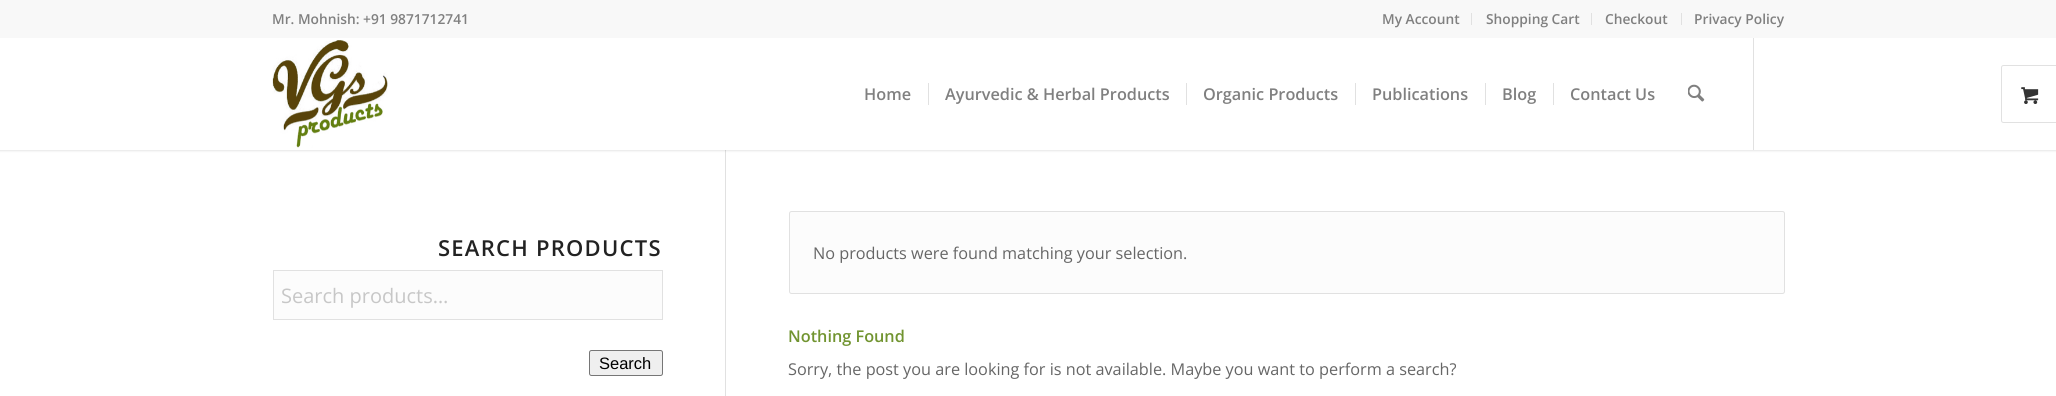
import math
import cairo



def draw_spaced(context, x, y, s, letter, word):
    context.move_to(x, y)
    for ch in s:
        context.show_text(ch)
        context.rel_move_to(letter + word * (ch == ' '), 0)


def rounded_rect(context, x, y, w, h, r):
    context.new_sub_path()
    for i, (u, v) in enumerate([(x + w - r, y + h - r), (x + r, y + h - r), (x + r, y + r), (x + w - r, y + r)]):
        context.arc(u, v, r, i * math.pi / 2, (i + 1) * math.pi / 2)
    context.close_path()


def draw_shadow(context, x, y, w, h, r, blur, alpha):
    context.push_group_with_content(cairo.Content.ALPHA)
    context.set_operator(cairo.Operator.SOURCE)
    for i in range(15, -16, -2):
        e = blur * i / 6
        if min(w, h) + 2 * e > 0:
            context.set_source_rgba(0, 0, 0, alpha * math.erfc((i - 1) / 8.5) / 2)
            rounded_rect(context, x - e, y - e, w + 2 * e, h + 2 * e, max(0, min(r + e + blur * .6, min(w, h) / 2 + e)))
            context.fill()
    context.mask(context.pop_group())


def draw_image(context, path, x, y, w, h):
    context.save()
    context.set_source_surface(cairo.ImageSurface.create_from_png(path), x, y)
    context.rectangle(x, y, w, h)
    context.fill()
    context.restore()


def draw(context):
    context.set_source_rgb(1, 1, 1)
    context.paint()
    context.set_source_rgb(225 / 255, 225 / 255, 225 / 255)
    context.rectangle(725, 149, 1, 247)
    context.fill()
    context.set_source_rgb(0, 0, 0)
    draw_shadow(context, -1, -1, 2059, 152, 0, 1, 0.1)
    context.set_source_rgb(248 / 255, 248 / 255, 248 / 255)
    context.rectangle(0, 0, 2056, 38)
    context.fill()
    context.set_source_rgb(225 / 255, 225 / 255, 225 / 255)
    context.rectangle(1471, 13, 1, 12)
    context.fill()
    context.rectangle(1591, 13, 1, 12)
    context.fill()
    context.rectangle(1681, 13, 1, 12)
    context.fill()
    context.set_source_rgb(1, 1, 1)
    context.rectangle(0, 38, 2056, 112)
    context.fill()
    draw_image(context, "images/1.png", 272, 40, 116, 108)
    context.set_source_rgb(225 / 255, 225 / 255, 225 / 255)
    context.rectangle(1753, 38, 1, 112)
    context.fill()
    context.rectangle(928, 83, 1, 22)
    context.fill()
    context.rectangle(1186, 83, 1, 22)
    context.fill()
    context.rectangle(1355, 83, 1, 22)
    context.fill()
    context.rectangle(1485, 83, 1, 22)
    context.fill()
    context.rectangle(1553, 83, 1, 22)
    context.fill()
    draw_image(context, "images/2.png", 1688, 84, 17, 18)
    rounded_rect(context, 2001.5, 65.5, 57, 57, 2)
    context.set_line_width(1)
    context.stroke()
    draw_image(context, "images/3.png", 2021, 87, 18, 17)
    context.set_source_rgb(252 / 255, 252 / 255, 252 / 255)
    context.rectangle(273.5, 270.5, 389, 49)
    context.fill_preserve()
    context.set_source_rgb(225 / 255, 225 / 255, 225 / 255)
    context.stroke()
    context.set_source_rgb(239 / 255, 239 / 255, 239 / 255)
    rounded_rect(context, 589.5, 350.5, 73, 25, 2)
    context.fill_preserve()
    context.set_source_rgb(118 / 255, 118 / 255, 118 / 255)
    context.stroke()
    context.set_source_rgb(252 / 255, 252 / 255, 252 / 255)
    rounded_rect(context, 789.5, 211.5, 995, 82, 2)
    context.fill_preserve()
    context.set_source_rgb(225 / 255, 225 / 255, 225 / 255)
    context.stroke()
    context.select_font_face("Open Sans SemiBold")
    context.set_font_size(13.75)
    context.set_source_rgb(128 / 255, 128 / 255, 128 / 255)
    context.move_to(272, 24)
    context.show_text("Mr. Mohnish: +91 9871712741")
    context.move_to(1382, 24)
    context.show_text("My Account")
    context.move_to(1486, 24)
    context.show_text("Shopping Cart")
    context.move_to(1605, 24)
    context.show_text("Checkout")
    context.move_to(1694, 24)
    context.show_text("Privacy Policy")
    context.set_font_size(16.25)
    context.move_to(864, 100)
    context.show_text("Home")
    context.move_to(945, 100)
    context.show_text("Ayurvedic & Herbal Products")
    context.move_to(1203, 100)
    context.show_text("Organic Products")
    context.move_to(1372, 100)
    context.show_text("Publications")
    context.move_to(1502, 100)
    context.show_text("Blog")
    context.move_to(1570, 100)
    context.show_text("Contact Us")
    context.set_font_size(22)
    context.set_source_rgb(34 / 255, 34 / 255, 34 / 255)
    draw_spaced(context, 438, 256, "SEARCH PRODUCTS", 1.25, 0)
    context.select_font_face("Open Sans")
    context.set_font_size(20)
    context.set_source_rgb(199 / 255, 199 / 255, 199 / 255)
    context.move_to(281, 303)
    context.show_text("Search products…")
    context.select_font_face("Liberation Sans")
    context.set_font_size(16.5)
    context.set_source_rgb(0, 0, 0)
    context.move_to(599, 369)
    context.show_text("Search")
    context.select_font_face("Open Sans")
    context.set_font_size(16.25)
    context.set_source_rgb(102 / 255, 102 / 255, 102 / 255)
    context.move_to(813, 259)
    context.show_text("No products were found matching your selection.")
    context.select_font_face("Open Sans SemiBold")
    context.set_source_rgb(113 / 255, 148 / 255, 48 / 255)
    context.move_to(788, 342)
    context.show_text("Nothing Found")
    context.select_font_face("Open Sans")
    context.set_source_rgb(102 / 255, 102 / 255, 102 / 255)
    context.move_to(788, 375)
    context.show_text("Sorry, the post you are looking for is not available. Maybe you want to perform a search?")


surface = cairo.ImageSurface(cairo.Format.RGB24, 2056, 396)
context = cairo.Context(surface)
options = cairo.FontOptions()
options.set_hint_metrics(cairo.HintMetrics.OFF)
options.set_hint_style(cairo.HintStyle.NONE)
context.set_font_options(options)
context.set_miter_limit(4)
draw(context)
surface.write_to_png("out.png")
